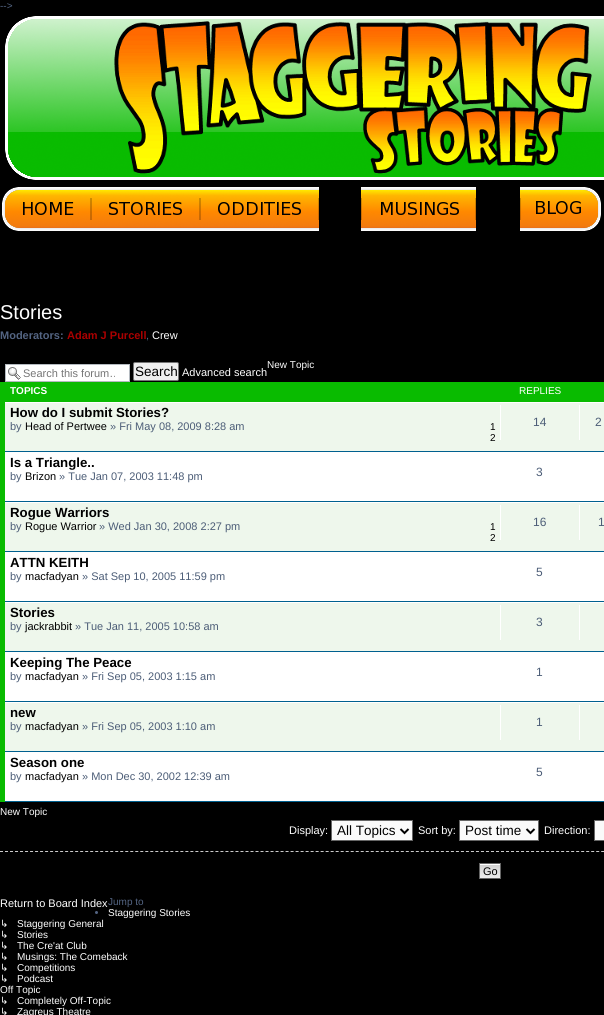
import math
import cairo



def rounded_rect(context, x, y, w, h, r):
    context.new_sub_path()
    for i, (u, v) in enumerate([(x + w - r, y + h - r), (x + r, y + h - r), (x + r, y + r), (x + w - r, y + r)]):
        context.arc(u, v, r, i * math.pi / 2, (i + 1) * math.pi / 2)
    context.close_path()


def draw_image(context, path, x, y, w, h):
    context.save()
    context.set_source_surface(cairo.ImageSurface.create_from_png(path), x, y)
    context.rectangle(x, y, w, h)
    context.fill()
    context.restore()


def draw(context):
    context.set_source_rgb(0, 0, 0)
    context.paint()
    draw_image(context, "images/1.png", 5, 16, 599, 164)
    draw_image(context, "images/2.png", 2, 187, 89, 44)
    draw_image(context, "images/3.png", 91, 187, 109, 44)
    draw_image(context, "images/4.png", 200, 187, 119, 44)
    draw_image(context, "images/5.png", 361, 187, 115, 44)
    draw_image(context, "images/6.png", 520, 187, 81, 44)
    context.set_source_rgb(1, 1, 1)
    context.rectangle(6, 365, 123, 16)
    context.fill()
    draw_image(context, "images/7.png", 8, 367, 13, 13)
    context.rectangle(5.5, 364.5, 124, 17)
    context.set_source_rgb(180 / 255, 186 / 255, 192 / 255)
    context.set_line_width(1)
    context.stroke()
    context.set_source_rgb(239 / 255, 239 / 255, 239 / 255)
    rounded_rect(context, 133.5, 362.5, 45, 18, 1.5)
    context.fill_preserve()
    context.set_source_rgb(118 / 255, 118 / 255, 118 / 255)
    context.stroke()
    context.set_source_rgb(9 / 255, 187 / 255, 0)
    context.rectangle(0, 382, 604, 420)
    context.fill()
    context.set_source_rgb(238 / 255, 247 / 255, 236 / 255)
    context.rectangle(5, 403, 599, 48)
    context.fill()
    context.set_source_rgb(1, 1, 1)
    context.rectangle(5, 402, 599, 1)
    context.fill()
    context.set_source_rgb(0, 96 / 255, 143 / 255)
    context.rectangle(5, 451, 599, 1)
    context.fill()
    context.set_source_rgb(1, 1, 1)
    context.rectangle(500, 405, 1, 35)
    context.fill()
    context.rectangle(579, 405, 1, 35)
    context.fill()
    context.rectangle(5, 452, 599, 49)
    context.fill()
    context.set_source_rgb(0, 96 / 255, 143 / 255)
    context.rectangle(5, 501, 599, 1)
    context.fill()
    context.set_source_rgb(238 / 255, 247 / 255, 236 / 255)
    context.rectangle(5, 503, 599, 48)
    context.fill()
    context.set_source_rgb(1, 1, 1)
    context.rectangle(5, 502, 599, 1)
    context.fill()
    context.set_source_rgb(0, 96 / 255, 143 / 255)
    context.rectangle(5, 551, 599, 1)
    context.fill()
    context.set_source_rgb(1, 1, 1)
    context.rectangle(500, 505, 1, 35)
    context.fill()
    context.rectangle(579, 505, 1, 35)
    context.fill()
    context.rectangle(5, 552, 599, 49)
    context.fill()
    context.set_source_rgb(0, 96 / 255, 143 / 255)
    context.rectangle(5, 601, 599, 1)
    context.fill()
    context.set_source_rgb(238 / 255, 247 / 255, 236 / 255)
    context.rectangle(5, 603, 599, 48)
    context.fill()
    context.set_source_rgb(1, 1, 1)
    context.rectangle(5, 602, 599, 1)
    context.fill()
    context.set_source_rgb(0, 96 / 255, 143 / 255)
    context.rectangle(5, 651, 599, 1)
    context.fill()
    context.set_source_rgb(1, 1, 1)
    context.rectangle(500, 605, 1, 35)
    context.fill()
    context.rectangle(579, 605, 1, 35)
    context.fill()
    context.rectangle(5, 652, 599, 49)
    context.fill()
    context.set_source_rgb(0, 96 / 255, 143 / 255)
    context.rectangle(5, 701, 599, 1)
    context.fill()
    context.set_source_rgb(238 / 255, 247 / 255, 236 / 255)
    context.rectangle(5, 703, 599, 48)
    context.fill()
    context.set_source_rgb(1, 1, 1)
    context.rectangle(5, 702, 599, 1)
    context.fill()
    context.set_source_rgb(0, 96 / 255, 143 / 255)
    context.rectangle(5, 751, 599, 1)
    context.fill()
    context.set_source_rgb(1, 1, 1)
    context.rectangle(500, 705, 1, 35)
    context.fill()
    context.rectangle(579, 705, 1, 35)
    context.fill()
    context.rectangle(5, 752, 599, 49)
    context.fill()
    context.set_source_rgb(0, 96 / 255, 143 / 255)
    context.rectangle(5, 801, 599, 1)
    context.fill()
    context.set_source_rgb(250 / 255, 250 / 255, 250 / 255)
    context.rectangle(331.5, 820.5, 81, 20)
    context.fill_preserve()
    context.set_source_rgb(102 / 255, 102 / 255, 102 / 255)
    context.stroke()
    context.new_path()
    context.move_to(400.5, 829)
    context.line_to(404.5, 833)
    context.line_to(408.5, 829)
    context.set_source_rgb(0, 0, 0)
    context.set_line_width(2)
    context.stroke()
    context.set_source_rgb(250 / 255, 250 / 255, 250 / 255)
    context.rectangle(459.5, 820.5, 79, 20)
    context.fill_preserve()
    context.set_source_rgb(102 / 255, 102 / 255, 102 / 255)
    context.set_line_width(1)
    context.stroke()
    context.new_path()
    context.move_to(526.5, 829)
    context.line_to(530.5, 833)
    context.line_to(534.5, 829)
    context.set_source_rgb(0, 0, 0)
    context.set_line_width(2)
    context.stroke()
    context.set_source_rgb(250 / 255, 250 / 255, 250 / 255)
    context.rectangle(594.5, 820.5, 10, 20)
    context.fill_preserve()
    context.set_source_rgb(102 / 255, 102 / 255, 102 / 255)
    context.set_line_width(1)
    context.stroke()
    context.new_path()
    context.move_to(0, 851.5)
    context.line_to(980, 851.5)
    context.set_source_rgb(204 / 255, 204 / 255, 204 / 255)
    context.set_dash([3, 2.01])
    context.stroke()
    draw_image(context, "images/8.png", 480, 864, 20, 14)
    context.rectangle(479.5, 863.5, 21, 15)
    context.set_source_rgb(102 / 255, 102 / 255, 102 / 255)
    context.set_dash([])
    context.stroke()
    context.set_source_rgb(83 / 255, 100 / 255, 130 / 255)
    context.arc(96.5, 912.5, 1.5, 0, 2 * math.pi)
    context.fill()
    context.select_font_face("Liberation Sans")
    context.set_font_size(10)
    context.move_to(0, 9)
    context.show_text("-->")
    context.set_font_size(20)
    context.set_source_rgb(1, 1, 1)
    context.move_to(0, 319)
    context.show_text("Stories")
    context.select_font_face("Liberation Sans", cairo.FontSlant.NORMAL, cairo.FontWeight.BOLD)
    context.set_font_size(11)
    context.set_source_rgb(83 / 255, 100 / 255, 130 / 255)
    context.move_to(0, 339)
    context.show_text("Moderators:")
    context.set_source_rgb(170 / 255, 0, 0)
    context.move_to(67, 339)
    context.show_text("Adam J Purcell")
    context.select_font_face("Liberation Sans")
    context.set_source_rgb(83 / 255, 100 / 255, 130 / 255)
    context.move_to(146, 339)
    context.show_text(",")
    context.set_source_rgb(1, 1, 1)
    context.move_to(152, 339)
    context.show_text("Crew")
    context.save()
    context.rectangle(23, 367, 92, 12)
    context.clip()
    context.set_source_rgb(117 / 255, 117 / 255, 117 / 255)
    context.move_to(23, 377)
    context.show_text("Search this forum…")
    context.restore()
    context.set_font_size(13.5)
    context.set_source_rgb(0, 0, 0)
    context.move_to(135, 376)
    context.show_text("Search")
    context.set_font_size(11)
    context.set_source_rgb(1, 1, 1)
    context.move_to(182, 376)
    context.show_text("Advanced search")
    context.set_font_size(10)
    context.move_to(267, 368)
    context.show_text("New Topic")
    context.select_font_face("Liberation Sans", cairo.FontSlant.NORMAL, cairo.FontWeight.BOLD)
    context.move_to(10, 394)
    context.show_text("TOPICS")
    context.select_font_face("Liberation Sans")
    context.move_to(519, 394)
    context.show_text("REPLIES")
    context.select_font_face("Liberation Sans", cairo.FontSlant.NORMAL, cairo.FontWeight.BOLD)
    context.set_font_size(13.25)
    context.set_source_rgb(0, 0, 0)
    context.move_to(10, 417)
    context.show_text("How do I submit Stories?")
    context.select_font_face("Liberation Sans")
    context.set_font_size(11)
    context.set_source_rgb(76 / 255, 93 / 255, 119 / 255)
    context.move_to(10, 430)
    context.show_text("by")
    context.set_source_rgb(0, 0, 0)
    context.move_to(25, 430)
    context.show_text("Head of Pertwee")
    context.set_source_rgb(76 / 255, 93 / 255, 119 / 255)
    context.move_to(110, 430)
    context.show_text("» Fri May 08, 2009 8:28 am")
    context.set_font_size(10)
    context.set_source_rgb(0, 0, 0)
    context.move_to(490, 430)
    context.show_text("1")
    context.move_to(490, 441)
    context.show_text("2")
    context.set_font_size(12)
    context.set_source_rgb(76 / 255, 93 / 255, 119 / 255)
    context.move_to(533, 426)
    context.show_text("14")
    context.move_to(595, 426)
    context.show_text("2")
    context.select_font_face("Liberation Sans", cairo.FontSlant.NORMAL, cairo.FontWeight.BOLD)
    context.set_font_size(13.25)
    context.set_source_rgb(0, 0, 0)
    context.move_to(10, 467)
    context.show_text("Is a Triangle..")
    context.select_font_face("Liberation Sans")
    context.set_font_size(11)
    context.set_source_rgb(76 / 255, 93 / 255, 119 / 255)
    context.move_to(10, 480)
    context.show_text("by")
    context.set_source_rgb(0, 0, 0)
    context.move_to(25, 480)
    context.show_text("Brizon")
    context.set_source_rgb(76 / 255, 93 / 255, 119 / 255)
    context.move_to(59, 480)
    context.show_text("» Tue Jan 07, 2003 11:48 pm")
    context.set_font_size(12)
    context.move_to(536, 476)
    context.show_text("3")
    context.select_font_face("Liberation Sans", cairo.FontSlant.NORMAL, cairo.FontWeight.BOLD)
    context.set_font_size(13.25)
    context.set_source_rgb(0, 0, 0)
    context.move_to(10, 517)
    context.show_text("Rogue Warriors")
    context.select_font_face("Liberation Sans")
    context.set_font_size(11)
    context.set_source_rgb(76 / 255, 93 / 255, 119 / 255)
    context.move_to(10, 530)
    context.show_text("by")
    context.set_source_rgb(0, 0, 0)
    context.move_to(25, 530)
    context.show_text("Rogue Warrior")
    context.set_source_rgb(76 / 255, 93 / 255, 119 / 255)
    context.move_to(99, 530)
    context.show_text("» Wed Jan 30, 2008 2:27 pm")
    context.set_font_size(10)
    context.set_source_rgb(0, 0, 0)
    context.move_to(490, 530)
    context.show_text("1")
    context.move_to(490, 541)
    context.show_text("2")
    context.set_font_size(12)
    context.set_source_rgb(76 / 255, 93 / 255, 119 / 255)
    context.move_to(533, 526)
    context.show_text("16")
    context.move_to(598, 526)
    context.show_text("1")
    context.select_font_face("Liberation Sans", cairo.FontSlant.NORMAL, cairo.FontWeight.BOLD)
    context.set_font_size(13.25)
    context.set_source_rgb(0, 0, 0)
    context.move_to(10, 567)
    context.show_text("ATTN KEITH")
    context.select_font_face("Liberation Sans")
    context.set_font_size(11)
    context.set_source_rgb(76 / 255, 93 / 255, 119 / 255)
    context.move_to(10, 580)
    context.show_text("by")
    context.set_source_rgb(0, 0, 0)
    context.move_to(25, 580)
    context.show_text("macfadyan")
    context.set_source_rgb(76 / 255, 93 / 255, 119 / 255)
    context.move_to(82, 580)
    context.show_text("» Sat Sep 10, 2005 11:59 pm")
    context.set_font_size(12)
    context.move_to(536, 576)
    context.show_text("5")
    context.select_font_face("Liberation Sans", cairo.FontSlant.NORMAL, cairo.FontWeight.BOLD)
    context.set_font_size(13.25)
    context.set_source_rgb(0, 0, 0)
    context.move_to(10, 617)
    context.show_text("Stories")
    context.select_font_face("Liberation Sans")
    context.set_font_size(11)
    context.set_source_rgb(76 / 255, 93 / 255, 119 / 255)
    context.move_to(10, 630)
    context.show_text("by")
    context.set_source_rgb(0, 0, 0)
    context.move_to(25, 630)
    context.show_text("jackrabbit")
    context.set_source_rgb(76 / 255, 93 / 255, 119 / 255)
    context.move_to(75, 630)
    context.show_text("» Tue Jan 11, 2005 10:58 am")
    context.set_font_size(12)
    context.move_to(536, 626)
    context.show_text("3")
    context.select_font_face("Liberation Sans", cairo.FontSlant.NORMAL, cairo.FontWeight.BOLD)
    context.set_font_size(13.25)
    context.set_source_rgb(0, 0, 0)
    context.move_to(10, 667)
    context.show_text("Keeping The Peace")
    context.select_font_face("Liberation Sans")
    context.set_font_size(11)
    context.set_source_rgb(76 / 255, 93 / 255, 119 / 255)
    context.move_to(10, 680)
    context.show_text("by")
    context.set_source_rgb(0, 0, 0)
    context.move_to(25, 680)
    context.show_text("macfadyan")
    context.set_source_rgb(76 / 255, 93 / 255, 119 / 255)
    context.move_to(82, 680)
    context.show_text("» Fri Sep 05, 2003 1:15 am")
    context.set_font_size(12)
    context.move_to(536, 676)
    context.show_text("1")
    context.select_font_face("Liberation Sans", cairo.FontSlant.NORMAL, cairo.FontWeight.BOLD)
    context.set_font_size(13.25)
    context.set_source_rgb(0, 0, 0)
    context.move_to(10, 717)
    context.show_text("new")
    context.select_font_face("Liberation Sans")
    context.set_font_size(11)
    context.set_source_rgb(76 / 255, 93 / 255, 119 / 255)
    context.move_to(10, 730)
    context.show_text("by")
    context.set_source_rgb(0, 0, 0)
    context.move_to(25, 730)
    context.show_text("macfadyan")
    context.set_source_rgb(76 / 255, 93 / 255, 119 / 255)
    context.move_to(82, 730)
    context.show_text("» Fri Sep 05, 2003 1:10 am")
    context.set_font_size(12)
    context.move_to(536, 726)
    context.show_text("1")
    context.select_font_face("Liberation Sans", cairo.FontSlant.NORMAL, cairo.FontWeight.BOLD)
    context.set_font_size(13.25)
    context.set_source_rgb(0, 0, 0)
    context.move_to(10, 767)
    context.show_text("Season one")
    context.select_font_face("Liberation Sans")
    context.set_font_size(11)
    context.set_source_rgb(76 / 255, 93 / 255, 119 / 255)
    context.move_to(10, 780)
    context.show_text("by")
    context.set_source_rgb(0, 0, 0)
    context.move_to(25, 780)
    context.show_text("macfadyan")
    context.set_source_rgb(76 / 255, 93 / 255, 119 / 255)
    context.move_to(82, 780)
    context.show_text("» Mon Dec 30, 2002 12:39 am")
    context.set_font_size(12)
    context.move_to(536, 776)
    context.show_text("5")
    context.set_font_size(10)
    context.set_source_rgb(1, 1, 1)
    context.move_to(0, 815)
    context.show_text("New Topic")
    context.set_font_size(11)
    context.move_to(289, 834)
    context.show_text("Display:")
    context.set_font_size(13.5)
    context.set_source_rgb(0, 0, 0)
    context.move_to(337, 835)
    context.show_text("All Topics")
    context.set_font_size(11)
    context.set_source_rgb(1, 1, 1)
    context.move_to(418, 834)
    context.show_text("Sort by:")
    context.set_font_size(13.5)
    context.set_source_rgb(0, 0, 0)
    context.move_to(465, 835)
    context.show_text("Post time")
    context.set_font_size(11)
    context.set_source_rgb(1, 1, 1)
    context.move_to(544, 834)
    context.show_text("Direction:")
    context.set_source_rgb(0, 0, 0)
    context.move_to(483, 875)
    context.show_text("Go")
    context.set_font_size(10)
    context.set_source_rgb(1, 1, 1)
    context.move_to(108, 916)
    context.show_text("Staggering Stories")
    context.select_font_face("DejaVu Sans")
    context.move_to(0, 927)
    context.show_text("↳")
    context.select_font_face("Liberation Sans")
    context.move_to(17, 927)
    context.show_text("Staggering General")
    context.select_font_face("DejaVu Sans")
    context.move_to(0, 938)
    context.show_text("↳")
    context.select_font_face("Liberation Sans")
    context.move_to(17, 938)
    context.show_text("Stories")
    context.select_font_face("DejaVu Sans")
    context.move_to(0, 949)
    context.show_text("↳")
    context.select_font_face("Liberation Sans")
    context.move_to(17, 949)
    context.show_text("The Cre'at Club")
    context.select_font_face("DejaVu Sans")
    context.move_to(0, 960)
    context.show_text("↳")
    context.select_font_face("Liberation Sans")
    context.move_to(17, 960)
    context.show_text("Musings: The Comeback")
    context.select_font_face("DejaVu Sans")
    context.move_to(0, 971)
    context.show_text("↳")
    context.select_font_face("Liberation Sans")
    context.move_to(17, 971)
    context.show_text("Competitions")
    context.select_font_face("DejaVu Sans")
    context.move_to(0, 982)
    context.show_text("↳")
    context.select_font_face("Liberation Sans")
    context.move_to(17, 982)
    context.show_text("Podcast")
    context.move_to(0, 993)
    context.show_text("Off Topic")
    context.select_font_face("DejaVu Sans")
    context.move_to(0, 1004)
    context.show_text("↳")
    context.select_font_face("Liberation Sans")
    context.move_to(17, 1004)
    context.show_text("Completely Off-Topic")
    context.select_font_face("DejaVu Sans")
    context.move_to(0, 1015)
    context.show_text("↳")
    context.select_font_face("Liberation Sans")
    context.move_to(17, 1015)
    context.show_text("Zagreus Theatre")
    context.set_font_size(11)
    context.move_to(0, 907)
    context.show_text("Return to Board Index")
    context.set_font_size(10)
    context.set_source_rgb(83 / 255, 100 / 255, 130 / 255)
    context.move_to(108, 905)
    context.show_text("Jump to")


surface = cairo.ImageSurface(cairo.Format.RGB24, 604, 1015)
context = cairo.Context(surface)
options = cairo.FontOptions()
options.set_hint_metrics(cairo.HintMetrics.OFF)
options.set_hint_style(cairo.HintStyle.NONE)
context.set_font_options(options)
context.set_miter_limit(4)
draw(context)
surface.write_to_png("out.png")
